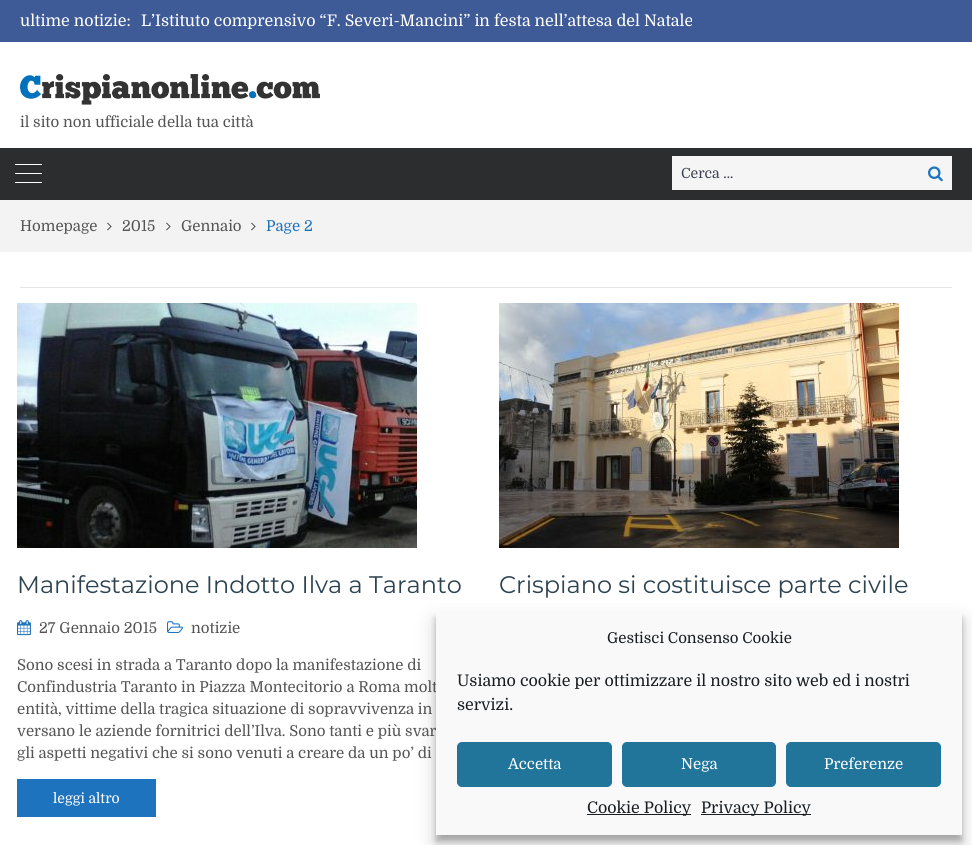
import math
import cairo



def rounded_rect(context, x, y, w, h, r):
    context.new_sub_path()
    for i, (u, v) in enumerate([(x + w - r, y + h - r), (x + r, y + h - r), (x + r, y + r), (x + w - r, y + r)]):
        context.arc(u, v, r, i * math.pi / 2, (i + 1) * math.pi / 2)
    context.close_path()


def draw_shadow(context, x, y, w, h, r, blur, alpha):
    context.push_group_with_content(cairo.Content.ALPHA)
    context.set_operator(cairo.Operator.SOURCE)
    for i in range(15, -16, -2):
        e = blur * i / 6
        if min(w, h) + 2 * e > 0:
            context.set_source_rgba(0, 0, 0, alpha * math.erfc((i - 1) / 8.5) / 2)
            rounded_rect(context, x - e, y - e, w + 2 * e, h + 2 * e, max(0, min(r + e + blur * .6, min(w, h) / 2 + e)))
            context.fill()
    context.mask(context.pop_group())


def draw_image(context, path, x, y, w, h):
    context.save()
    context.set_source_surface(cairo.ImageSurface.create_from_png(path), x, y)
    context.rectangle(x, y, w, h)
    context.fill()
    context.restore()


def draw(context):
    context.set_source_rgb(1, 1, 1)
    context.paint()
    context.set_source_rgb(62 / 255, 91 / 255, 152 / 255)
    context.rectangle(0, 0, 972, 42)
    context.fill()
    draw_image(context, "images/1.png", 20, 74, 300, 31)
    context.set_source_rgb(43 / 255, 45 / 255, 46 / 255)
    context.rectangle(0, 148, 972, 52)
    context.fill()
    context.set_source_rgb(1, 1, 1)
    context.rectangle(15, 164, 27, 1)
    context.fill()
    context.rectangle(15, 173, 27, 1)
    context.fill()
    context.rectangle(15, 182, 27, 1)
    context.fill()
    context.set_source_rgb(245 / 255, 245 / 255, 245 / 255)
    context.rectangle(672, 156, 280, 34)
    context.fill()
    draw_image(context, "images/2.png", 928, 166, 15, 16)
    context.set_source_rgb(243 / 255, 243 / 255, 243 / 255)
    context.rectangle(0, 200, 972, 52)
    context.fill()
    draw_image(context, "images/3.png", 107, 222, 5, 9)
    draw_image(context, "images/3.png", 166, 222, 5, 9)
    draw_image(context, "images/3.png", 251, 222, 5, 9)
    context.set_source_rgb(229 / 255, 229 / 255, 229 / 255)
    context.rectangle(20, 287, 932, 1)
    context.fill()
    draw_image(context, "images/4.png", 17, 303, 400, 245)
    draw_image(context, "images/5.png", 17, 620, 14, 16)
    draw_image(context, "images/6.png", 167, 621, 16, 12)
    context.set_source_rgb(30 / 255, 115 / 255, 190 / 255)
    context.rectangle(17, 779, 139, 38)
    context.fill()
    draw_image(context, "images/7.png", 499, 303, 400, 245)
    context.set_source_rgb(0, 0, 0)
    draw_shadow(context, 436, 618, 526, 223, 0, 3, 0.23)
    draw_shadow(context, 436, 622, 526, 223, 0, 10, 0.19)
    context.select_font_face("Domine")
    context.set_font_size(16)
    context.set_source_rgb(1, 1, 1)
    context.move_to(20, 26)
    context.show_text("ultime notizie:")
    context.move_to(141, 26)
    context.show_text("L’Istituto comprensivo “F. Severi-Mancini” in festa nell’attesa del Natale")
    context.set_font_size(15)
    context.set_source_rgb(85 / 255, 85 / 255, 85 / 255)
    context.move_to(20, 127)
    context.show_text("il sito non ufficiale della tua città")
    context.set_font_size(14)
    context.set_source_rgb(61 / 255, 67 / 255, 81 / 255)
    context.move_to(681, 178)
    context.show_text("Cerca …")
    context.set_font_size(15)
    context.set_source_rgb(85 / 255, 85 / 255, 85 / 255)
    context.move_to(20, 231)
    context.show_text("Homepage")
    context.move_to(122, 231)
    context.show_text("2015")
    context.move_to(181, 231)
    context.show_text("Gennaio")
    context.set_source_rgb(30 / 255, 115 / 255, 190 / 255)
    context.move_to(266, 231)
    context.show_text("Page 2")
    context.select_font_face("Montserrat")
    context.set_font_size(24)
    context.set_source_rgb(45 / 255, 67 / 255, 81 / 255)
    context.move_to(17, 593)
    context.show_text("Manifestazione Indotto Ilva a Taranto")
    context.select_font_face("Domine")
    context.set_font_size(15)
    context.set_source_rgb(85 / 255, 85 / 255, 85 / 255)
    context.move_to(39, 633)
    context.show_text("27 Gennaio 2015")
    context.move_to(191, 633)
    context.show_text("notizie")
    context.move_to(17, 670)
    context.show_text("Sono scesi in strada a Taranto dopo la manifestazione di")
    context.move_to(17, 692)
    context.show_text("Confindustria Taranto in Piazza Montecitorio a Roma molt")
    context.move_to(17, 714)
    context.show_text("entità, vittime della tragica situazione di sopravvivenza in")
    context.move_to(17, 736)
    context.show_text("versano le aziende fornitrici dell’Ilva. Sono tanti e più svar")
    context.move_to(17, 758)
    context.show_text("gli aspetti negativi che si sono venuti a creare da un po’ di")
    context.set_font_size(14)
    context.set_source_rgb(1, 1, 1)
    context.move_to(53, 803)
    context.show_text("leggi altro")
    context.select_font_face("Montserrat")
    context.set_font_size(24)
    context.set_source_rgb(45 / 255, 67 / 255, 81 / 255)
    context.move_to(499, 593)
    context.show_text("Crispiano si costituisce parte civile")
    context.set_source_rgb(249 / 255, 249 / 255, 249 / 255)
    context.rectangle(436, 612, 526, 223)
    context.fill()
    context.select_font_face("Domine")
    context.set_font_size(15)
    context.set_source_rgb(25 / 255, 30 / 255, 35 / 255)
    context.move_to(607, 643)
    context.show_text("Gestisci Consenso Cookie")
    context.set_font_size(16)
    context.move_to(457, 686)
    context.show_text("Usiamo cookie per ottimizzare il nostro sito web ed i nostri")
    context.move_to(457, 710)
    context.show_text("servizi.")
    context.set_source_rgb(33 / 255, 117 / 255, 155 / 255)
    rounded_rect(context, 457.5, 742.5, 154, 44, 4.5)
    context.fill_preserve()
    context.set_line_width(1)
    context.stroke()
    context.set_font_size(15)
    context.set_source_rgb(1, 1, 1)
    context.move_to(508, 769)
    context.show_text("Accetta")
    context.set_source_rgb(33 / 255, 117 / 255, 155 / 255)
    rounded_rect(context, 622.5, 742.5, 153, 44, 4.5)
    context.fill_preserve()
    context.stroke()
    context.set_source_rgb(1, 1, 1)
    context.move_to(681, 769)
    context.show_text("Nega")
    context.set_source_rgb(33 / 255, 117 / 255, 155 / 255)
    rounded_rect(context, 786.5, 742.5, 154, 44, 4.5)
    context.fill_preserve()
    context.stroke()
    context.set_source_rgb(1, 1, 1)
    context.move_to(824, 769)
    context.show_text("Preferenze")
    context.set_source_rgb(25 / 255, 30 / 255, 35 / 255)
    context.rectangle(587, 814, 104, 1)
    context.fill()
    context.set_font_size(16)
    context.move_to(587, 813)
    context.show_text("Cookie Policy")
    context.rectangle(701, 814, 110, 1)
    context.fill()
    context.move_to(701, 813)
    context.show_text("Privacy Policy")


surface = cairo.ImageSurface(cairo.Format.RGB24, 972, 845)
context = cairo.Context(surface)
options = cairo.FontOptions()
options.set_hint_metrics(cairo.HintMetrics.OFF)
options.set_hint_style(cairo.HintStyle.NONE)
context.set_font_options(options)
context.set_miter_limit(4)
draw(context)
surface.write_to_png("out.png")
